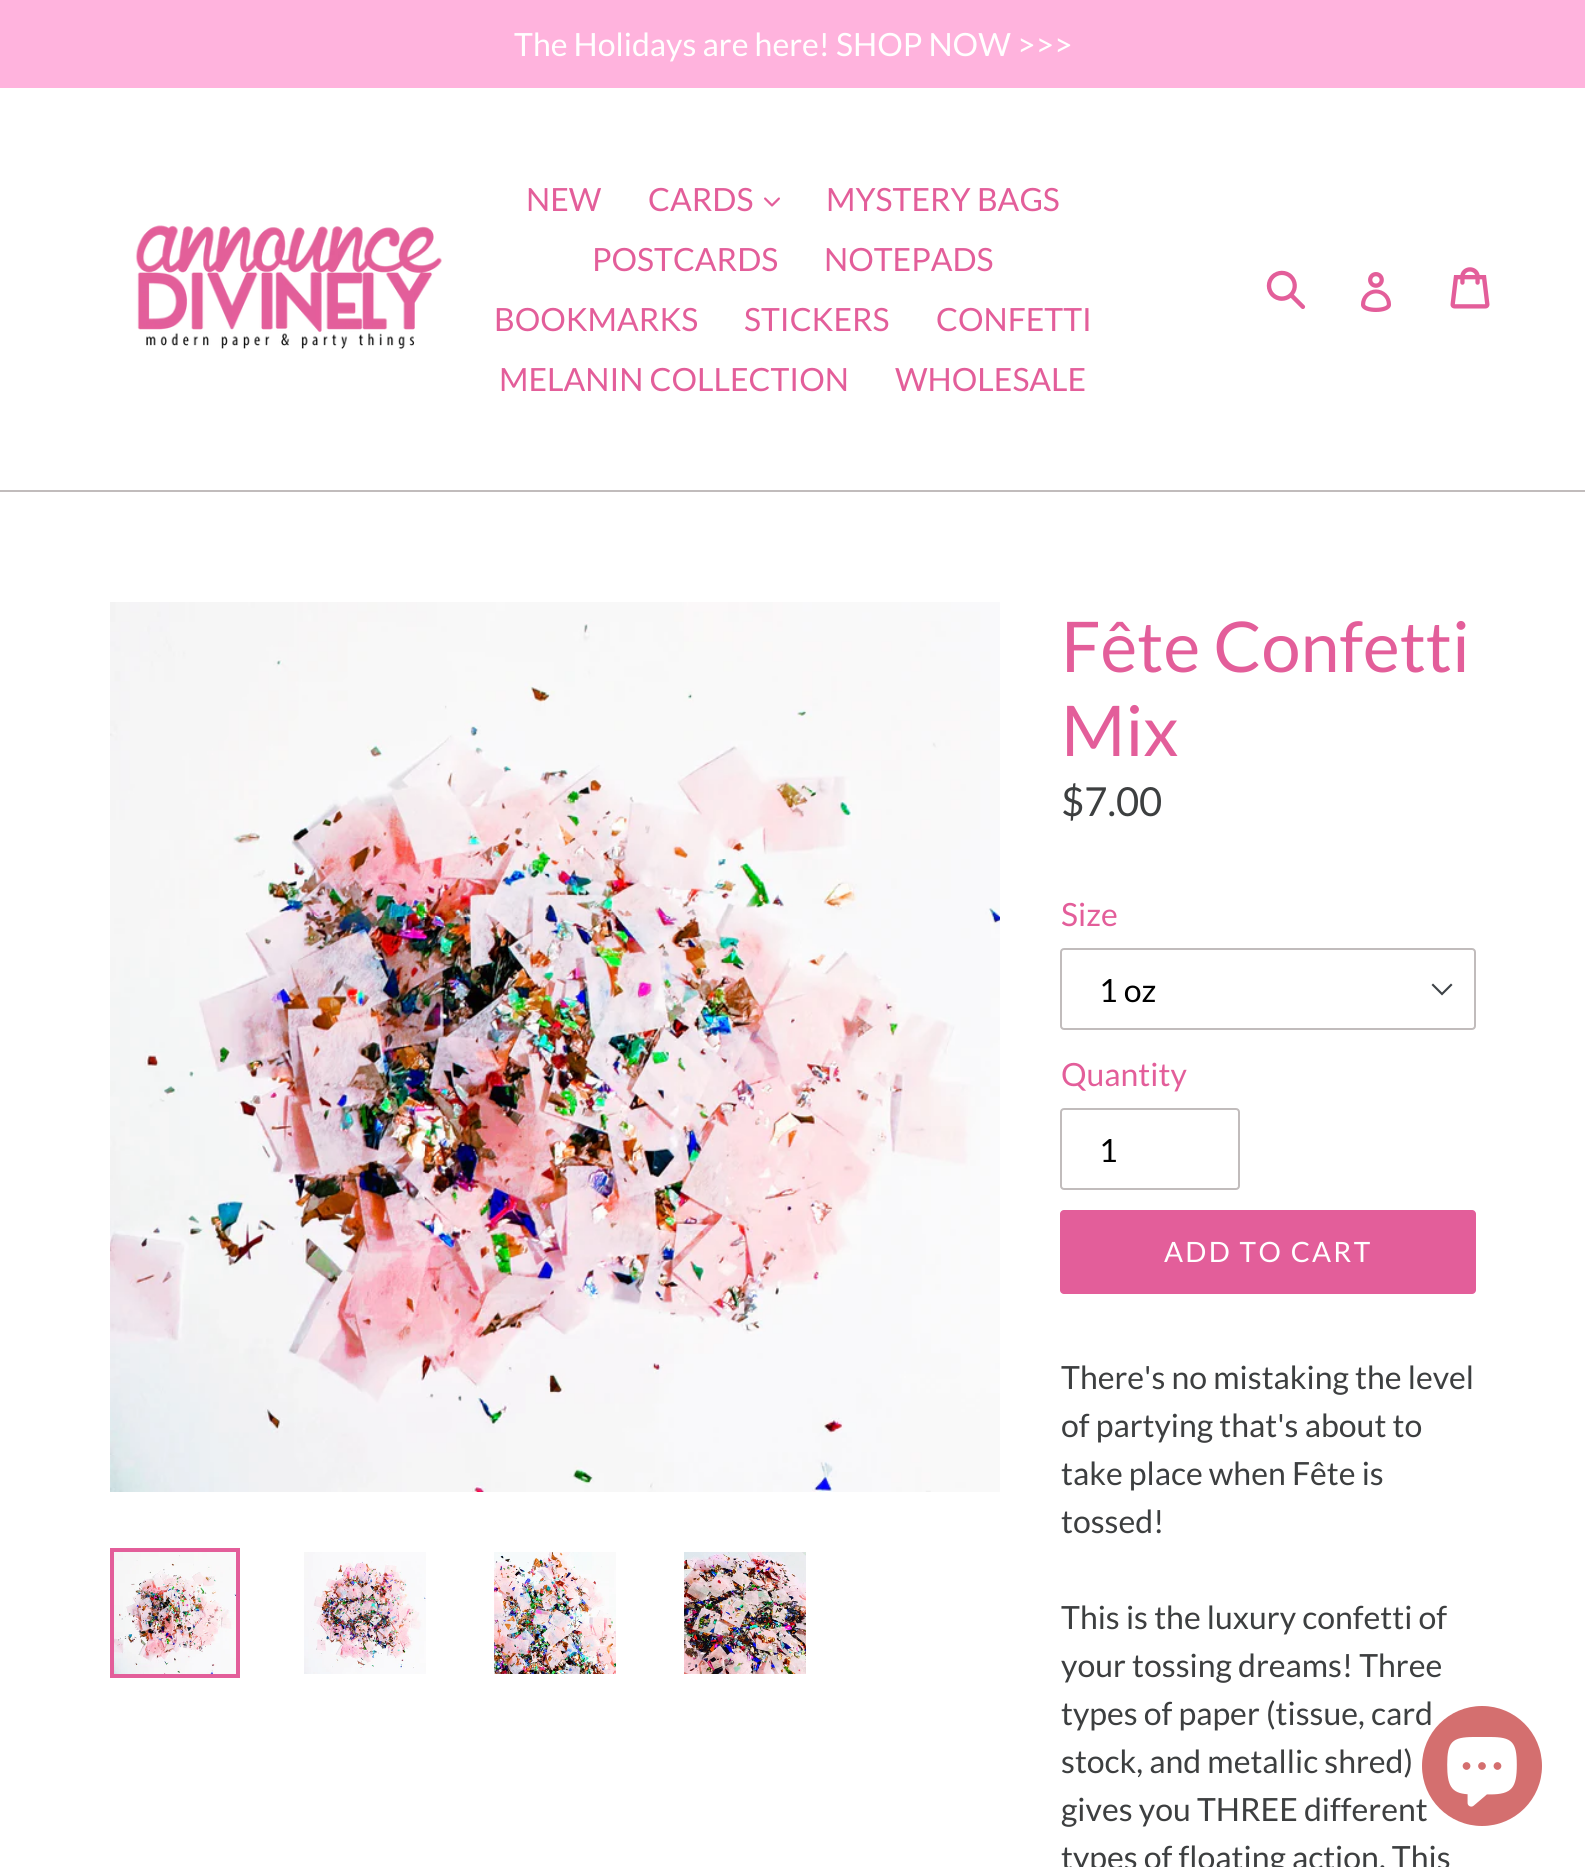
import math
import cairo



def draw_spaced(context, x, y, s, letter, word):
    context.move_to(x, y)
    for ch in s:
        context.show_text(ch)
        context.rel_move_to(letter + word * (ch == ' '), 0)


def rounded_rect(context, x, y, w, h, r):
    context.new_sub_path()
    for i, (u, v) in enumerate([(x + w - r, y + h - r), (x + r, y + h - r), (x + r, y + r), (x + w - r, y + r)]):
        context.arc(u, v, r, i * math.pi / 2, (i + 1) * math.pi / 2)
    context.close_path()


def draw_image(context, path, x, y, w, h):
    context.save()
    context.set_source_surface(cairo.ImageSurface.create_from_png(path), x, y)
    context.rectangle(x, y, w, h)
    context.fill()
    context.restore()


def draw(context):
    context.set_source_rgb(1, 1, 1)
    context.paint()
    context.set_source_rgb(1, 179 / 255, 221 / 255)
    context.rectangle(0, 0, 1585, 88)
    context.fill()
    context.set_source_rgb(193 / 255, 188 / 255, 188 / 255)
    context.rectangle(0, 490, 1585, 2)
    context.fill()
    draw_image(context, "images/1.png", 135, 225, 307, 124)
    draw_image(context, "images/2.png", 764, 197, 16, 10)
    draw_image(context, "images/3.png", 1266, 270, 40, 39)
    draw_image(context, "images/4.png", 1361, 272, 30, 40)
    draw_image(context, "images/5.png", 1450, 267, 40, 42)
    draw_image(context, "images/6.png", 110, 602, 890, 890)
    context.rectangle(112, 1550, 126, 126)
    context.set_source_rgb(227 / 255, 94 / 255, 154 / 255)
    context.set_line_width(4)
    context.stroke()
    draw_image(context, "images/7.png", 114, 1552, 122, 122)
    draw_image(context, "images/8.png", 304, 1552, 122, 122)
    draw_image(context, "images/9.png", 494, 1552, 122, 122)
    draw_image(context, "images/10.png", 684, 1552, 122, 122)
    context.set_source_rgb(61 / 255, 66 / 255, 70 / 255)
    context.new_path()
    context.move_to(1442, 995.5)
    context.line_to(1431.5, 985)
    context.line_to(1433, 983.5)
    context.line_to(1442, 992.5)
    context.line_to(1451, 983.5)
    context.line_to(1452.5, 985)
    context.close_path()
    context.fill()
    rounded_rect(context, 1061, 949, 414, 80, 3)
    context.set_source_rgb(193 / 255, 188 / 255, 188 / 255)
    context.set_line_width(2)
    context.stroke()
    rounded_rect(context, 1061, 1109, 178, 80, 3)
    context.stroke()
    context.set_source_rgb(227 / 255, 94 / 255, 154 / 255)
    rounded_rect(context, 1060, 1210, 416, 84, 4)
    context.fill()
    context.select_font_face("Lato")
    context.set_font_size(32)
    context.set_source_rgb(1, 1, 1)
    context.move_to(514, 56)
    context.show_text("The Holidays are here! SHOP NOW >>>")
    context.set_source_rgb(227 / 255, 94 / 255, 154 / 255)
    context.move_to(526, 211)
    context.show_text("NEW")
    context.move_to(648, 211)
    context.show_text("CARDS")
    context.move_to(826, 211)
    context.show_text("MYSTERY BAGS")
    context.move_to(592, 271)
    context.show_text("POSTCARDS")
    context.move_to(824, 271)
    context.show_text("NOTEPADS")
    context.move_to(494, 331)
    context.show_text("BOOKMARKS")
    context.move_to(744, 331)
    context.show_text("STICKERS")
    context.move_to(936, 331)
    context.show_text("CONFETTI")
    context.move_to(499, 391)
    context.show_text("MELANIN COLLECTION")
    context.move_to(895, 391)
    context.show_text("WHOLESALE")
    context.set_font_size(70)
    context.move_to(1061, 672)
    context.show_text("Fête Confetti")
    context.move_to(1061, 756)
    context.show_text("Mix")
    context.set_font_size(40)
    context.set_source_rgb(61 / 255, 63 / 255, 64 / 255)
    context.move_to(1061, 816)
    context.show_text("$7.00")
    context.set_font_size(32)
    context.set_source_rgb(227 / 255, 94 / 255, 154 / 255)
    context.move_to(1061, 926)
    context.show_text("Size")
    context.set_source_rgb(0, 0, 0)
    context.move_to(1099, 1002)
    context.show_text("1 oz")
    context.set_source_rgb(227 / 255, 94 / 255, 154 / 255)
    context.move_to(1061, 1086)
    context.show_text("Quantity")
    context.set_source_rgb(0, 0, 0)
    context.move_to(1099, 1162)
    context.show_text("1")
    context.set_font_size(28)
    context.set_source_rgb(1, 1, 1)
    draw_spaced(context, 1164, 1262, "ADD TO CART", 2.25, 0)
    context.set_font_size(32)
    context.set_source_rgb(61 / 255, 63 / 255, 64 / 255)
    context.move_to(1061, 1389)
    context.show_text("There's no mistaking the level")
    context.move_to(1061, 1437)
    context.show_text("of partying that's about to")
    context.move_to(1061, 1485)
    context.show_text("take place when Fête is")
    context.move_to(1061, 1533)
    context.show_text("tossed!")
    context.move_to(1061, 1629)
    context.show_text("This is the luxury confetti of")
    context.move_to(1061, 1677)
    context.show_text("your tossing dreams! Three")
    context.move_to(1061, 1725)
    context.show_text("types of paper (tissue, card")
    context.move_to(1061, 1773)
    context.show_text("stock, and metallic shred)")
    context.move_to(1061, 1821)
    context.show_text("gives you THREE different")
    context.move_to(1061, 1869)
    context.show_text("types of floating action. This")
    context.set_source_rgb(212 / 255, 111 / 255, 111 / 255)
    context.new_path()
    context.arc(1482, 1766, 60, 0, 2 * math.pi)
    context.fill()
    draw_image(context, "images/11.png", 1447, 1737, 70, 70)


surface = cairo.ImageSurface(cairo.Format.RGB24, 1585, 1867)
context = cairo.Context(surface)
options = cairo.FontOptions()
options.set_hint_metrics(cairo.HintMetrics.OFF)
options.set_hint_style(cairo.HintStyle.NONE)
context.set_font_options(options)
context.set_miter_limit(4)
draw(context)
surface.write_to_png("out.png")
